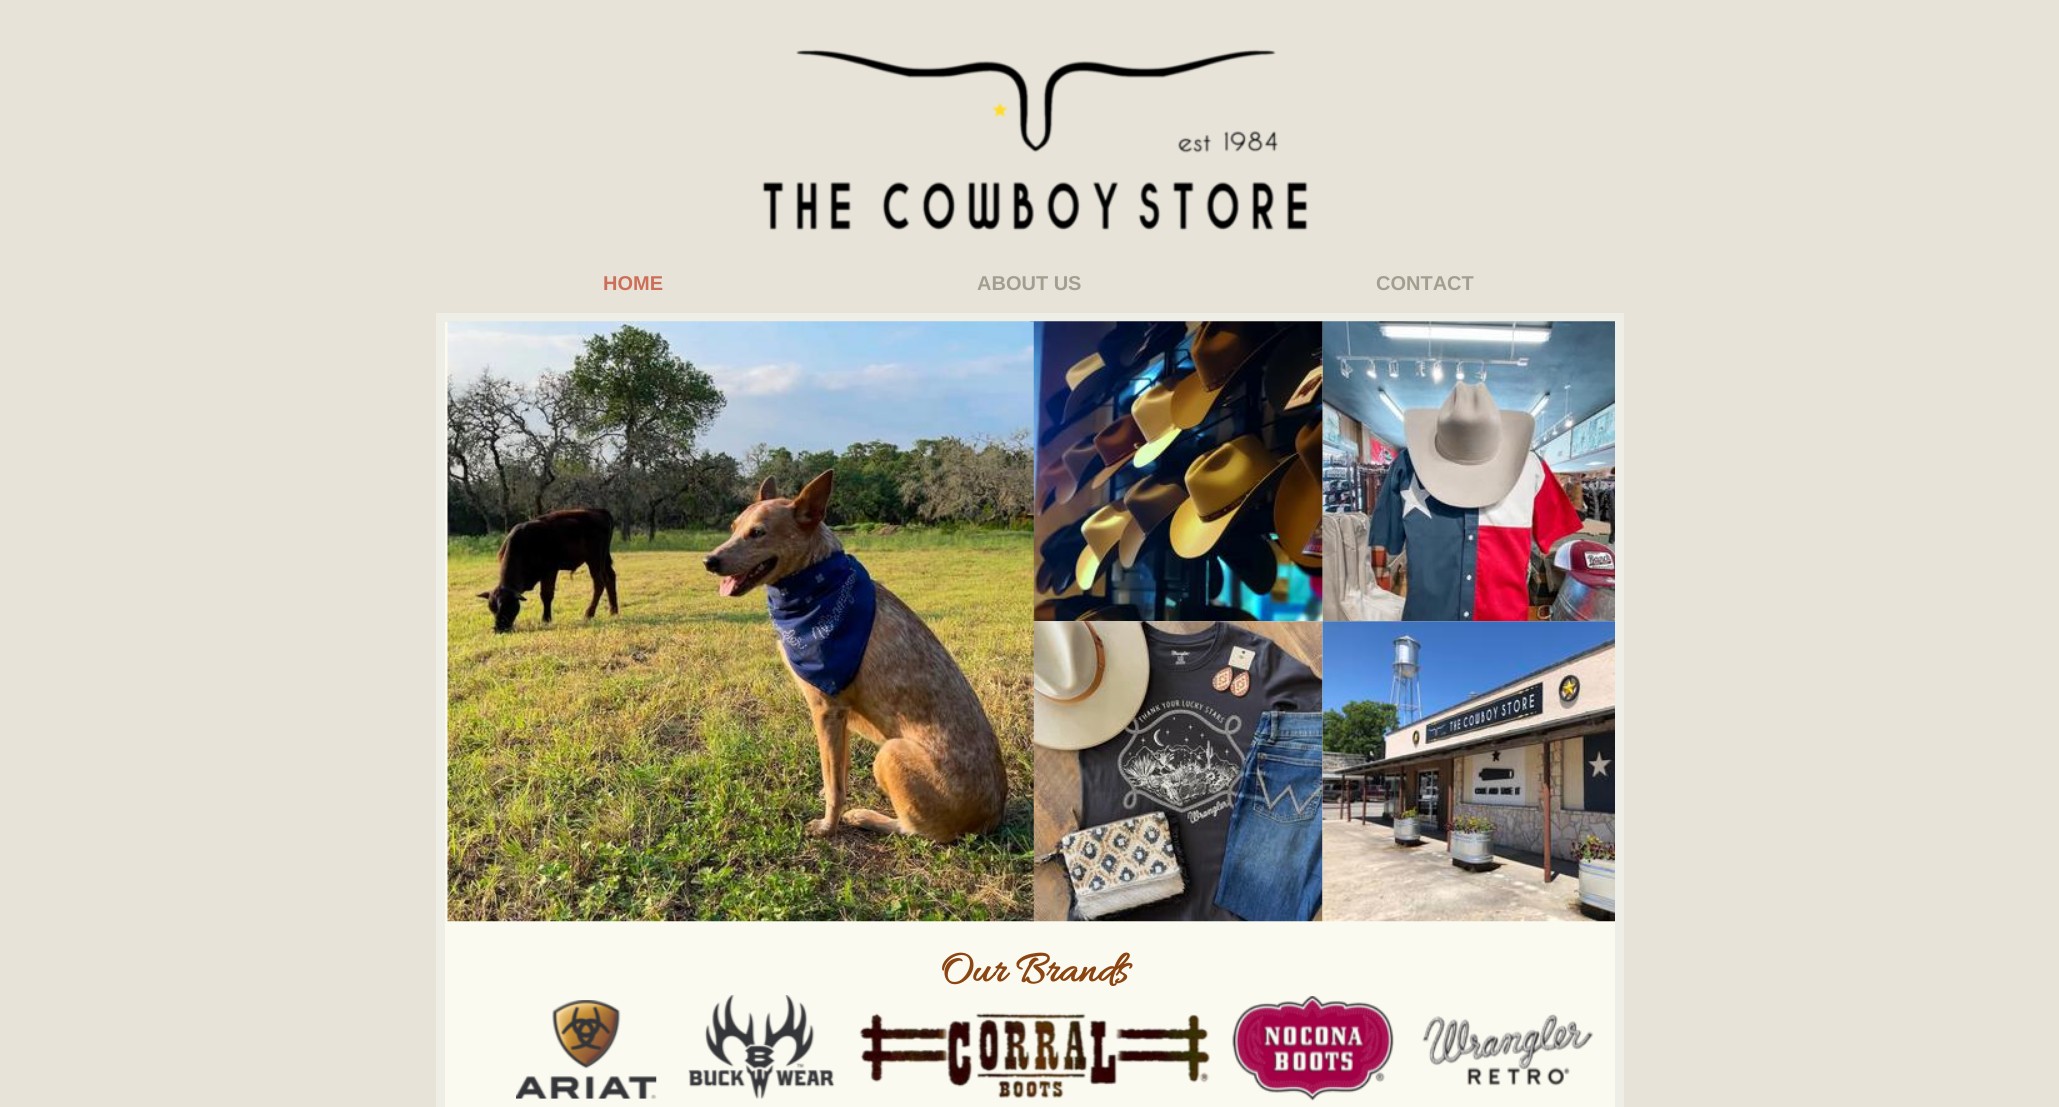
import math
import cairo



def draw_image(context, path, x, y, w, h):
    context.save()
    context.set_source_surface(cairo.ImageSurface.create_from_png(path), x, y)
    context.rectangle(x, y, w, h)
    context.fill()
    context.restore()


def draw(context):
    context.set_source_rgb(231 / 255, 227 / 255, 216 / 255)
    context.paint()
    context.set_source_rgb(251 / 255, 250 / 255, 240 / 255)
    context.rectangle(440.5, 317.5, 1179, 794)
    context.fill_preserve()
    context.set_source_rgb(239 / 255, 238 / 255, 230 / 255)
    context.set_line_width(9)
    context.stroke()
    draw_image(context, "images/1.png", 762, 49, 546, 182)
    draw_image(context, "images/4.png", 1322, 321, 293, 301)
    draw_image(context, "images/3.png", 1030, 321, 293, 301)
    draw_image(context, "images/5.png", 1030, 621, 293, 301)
    draw_image(context, "images/2.png", 447, 321, 587, 601)
    draw_image(context, "images/6.png", 1322, 621, 293, 301)
    draw_image(context, "images/7.png", 516, 1000, 141, 99)
    draw_image(context, "images/8.png", 688, 995, 147, 104)
    draw_image(context, "images/9.png", 859, 1011, 351, 88)
    draw_image(context, "images/10.png", 1232, 996, 162, 105)
    draw_image(context, "images/11.png", 1422, 1014, 172, 72)
    context.select_font_face("Liberation Sans", cairo.FontSlant.NORMAL, cairo.FontWeight.BOLD)
    context.set_font_size(20)
    context.set_source_rgb(204 / 255, 111 / 255, 89 / 255)
    context.move_to(603, 290)
    context.show_text("HOME")
    context.set_source_rgb(162 / 255, 158 / 255, 144 / 255)
    context.move_to(977, 290)
    context.show_text("ABOUT US")
    context.move_to(1376, 290)
    context.show_text("CONTACT")
    context.select_font_face("Allura", cairo.FontSlant.NORMAL, cairo.FontWeight.BOLD)
    context.set_font_size(45)
    context.set_source_rgb(139 / 255, 69 / 255, 19 / 255)
    context.move_to(940, 981)
    context.show_text("Our Brands")


surface = cairo.ImageSurface(cairo.Format.RGB24, 2059, 1107)
context = cairo.Context(surface)
options = cairo.FontOptions()
options.set_hint_metrics(cairo.HintMetrics.OFF)
options.set_hint_style(cairo.HintStyle.NONE)
context.set_font_options(options)
context.set_miter_limit(4)
draw(context)
surface.write_to_png("out.png")
